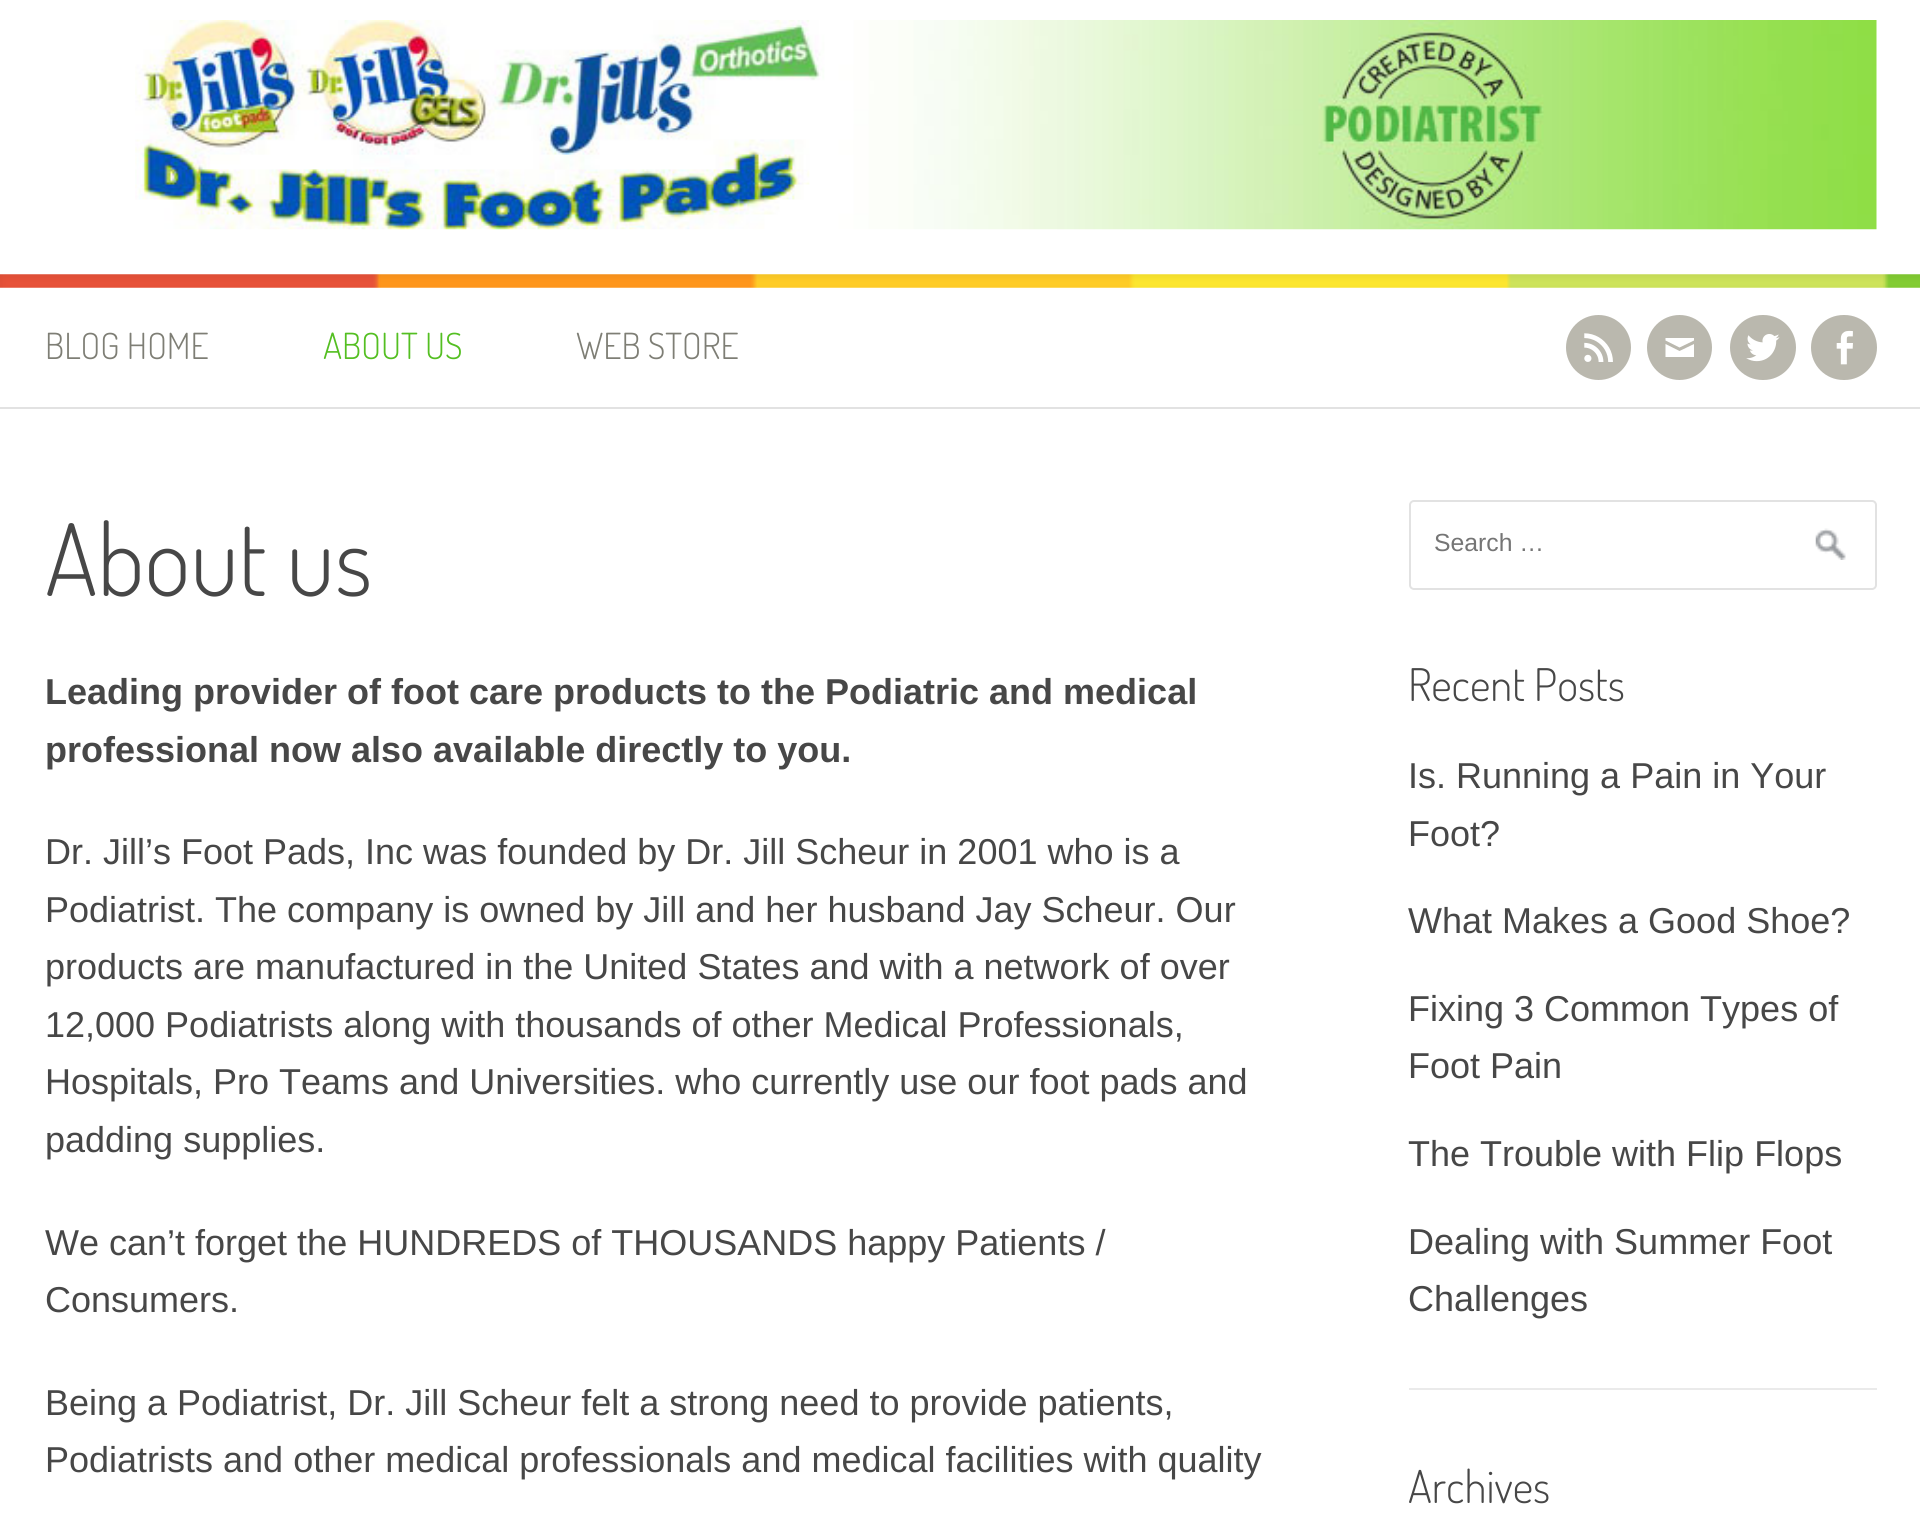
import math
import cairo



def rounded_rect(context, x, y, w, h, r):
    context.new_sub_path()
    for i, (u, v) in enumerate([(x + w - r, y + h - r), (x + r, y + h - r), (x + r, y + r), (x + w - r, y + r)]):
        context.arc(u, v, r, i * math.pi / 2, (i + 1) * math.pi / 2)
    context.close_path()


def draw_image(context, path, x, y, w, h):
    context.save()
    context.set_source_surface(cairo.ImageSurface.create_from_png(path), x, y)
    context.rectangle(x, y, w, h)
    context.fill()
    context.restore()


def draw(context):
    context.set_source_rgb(1, 1, 1)
    context.paint()
    draw_image(context, "images/1.png", 135, 20, 1742, 210)
    draw_image(context, "images/2.png", 0, 274, 1920, 14)
    context.set_source_rgb(226 / 255, 226 / 255, 226 / 255)
    context.rectangle(0, 407, 1920, 2)
    context.fill()
    context.set_source_rgb(186 / 255, 184 / 255, 174 / 255)
    context.arc(1598.5, 347.5, 32.5, 0, 2 * math.pi)
    context.fill()
    draw_image(context, "images/3.png", 1584, 333, 29, 29)
    context.arc(1679.5, 347.5, 32.5, 0, 2 * math.pi)
    context.fill()
    context.set_source_rgb(1, 1, 1)
    context.new_path()
    context.move_to(1665.5, 338)
    context.line_to(1694, 338)
    context.line_to(1694, 340.5)
    context.line_to(1679.5, 347.5)
    context.line_to(1665.5, 340.5)
    context.close_path()
    context.move_to(1665.5, 344)
    context.line_to(1679.5, 351)
    context.line_to(1694, 344)
    context.line_to(1694, 357)
    context.line_to(1665.5, 357)
    context.close_path()
    context.fill()
    context.set_source_rgb(186 / 255, 184 / 255, 174 / 255)
    rounded_rect(context, 1730, 315, 66, 65, 32.5)
    context.fill()
    draw_image(context, "images/4.png", 1746, 334, 34, 28)
    rounded_rect(context, 1811, 315, 66, 65, 32.5)
    context.fill()
    draw_image(context, "images/5.png", 1836, 330, 17, 35)
    draw_image(context, "images/6.png", 1815, 528, 31, 32)
    rounded_rect(context, 1410, 501, 466, 88, 4)
    context.set_source_rgb(226 / 255, 226 / 255, 226 / 255)
    context.stroke()
    context.set_source_rgb(234 / 255, 234 / 255, 234 / 255)
    context.rectangle(1409, 1388, 468, 2)
    context.fill()
    context.select_font_face("Dosis Light")
    context.set_font_size(36)
    context.set_source_rgb(126 / 255, 126 / 255, 117 / 255)
    context.move_to(45, 359)
    context.show_text("BLOG HOME")
    context.set_source_rgb(84 / 255, 191 / 255, 34 / 255)
    context.move_to(323, 359)
    context.show_text("ABOUT US")
    context.set_source_rgb(126 / 255, 126 / 255, 117 / 255)
    context.move_to(576, 359)
    context.show_text("WEB STORE")
    context.set_font_size(99)
    context.set_source_rgb(71 / 255, 71 / 255, 71 / 255)
    context.move_to(45, 596)
    context.show_text("About us")
    context.select_font_face("Liberation Sans", cairo.FontSlant.NORMAL, cairo.FontWeight.BOLD)
    context.set_font_size(36)
    context.move_to(45, 704)
    context.show_text("Leading provider of foot care products to the Podiatric and medical")
    context.move_to(45, 762)
    context.show_text("professional now also available directly to you.")
    context.select_font_face("Liberation Sans")
    context.move_to(45, 864)
    context.show_text("Dr. Jill’s Foot Pads, Inc was founded by Dr. Jill Scheur in 2001 who is a")
    context.move_to(45, 922)
    context.show_text("Podiatrist. The company is owned by Jill and her husband Jay Scheur. Our")
    context.move_to(45, 979)
    context.show_text("products are manufactured in the United States and with a network of over")
    context.move_to(45, 1037)
    context.show_text("12,000 Podiatrists along with thousands of other Medical Professionals,")
    context.move_to(45, 1094)
    context.show_text("Hospitals, Pro Teams and Universities. who currently use our foot pads and")
    context.move_to(45, 1152)
    context.show_text("padding supplies.")
    context.move_to(45, 1255)
    context.show_text("We can’t forget the HUNDREDS of THOUSANDS happy Patients /")
    context.move_to(45, 1312)
    context.show_text("Consumers.")
    context.move_to(45, 1415)
    context.show_text("Being a Podiatrist, Dr. Jill Scheur felt a strong need to provide patients,")
    context.move_to(45, 1472)
    context.show_text("Podiatrists and other medical professionals and medical facilities with quality")
    context.set_font_size(24.75)
    context.set_source_rgb(117 / 255, 117 / 255, 117 / 255)
    context.move_to(1434, 551)
    context.show_text("Search …")
    context.select_font_face("Dosis Light")
    context.set_font_size(45)
    context.set_source_rgb(71 / 255, 71 / 255, 71 / 255)
    context.move_to(1408, 701)
    context.show_text("Recent Posts")
    context.select_font_face("Liberation Sans")
    context.set_font_size(36)
    context.move_to(1408, 788)
    context.show_text("Is. Running a Pain in Your")
    context.move_to(1408, 846)
    context.show_text("Foot?")
    context.move_to(1408, 933)
    context.show_text("What Makes a Good Shoe?")
    context.move_to(1408, 1021)
    context.show_text("Fixing 3 Common Types of")
    context.move_to(1408, 1078)
    context.show_text("Foot Pain")
    context.move_to(1408, 1166)
    context.show_text("The Trouble with Flip Flops")
    context.move_to(1408, 1254)
    context.show_text("Dealing with Summer Foot")
    context.move_to(1408, 1311)
    context.show_text("Challenges")
    context.select_font_face("Dosis Light")
    context.set_font_size(45)
    context.move_to(1408, 1503)
    context.show_text("Archives")


surface = cairo.ImageSurface(cairo.Format.RGB24, 1920, 1520)
context = cairo.Context(surface)
options = cairo.FontOptions()
options.set_hint_metrics(cairo.HintMetrics.OFF)
options.set_hint_style(cairo.HintStyle.NONE)
context.set_font_options(options)
context.set_miter_limit(4)
draw(context)
surface.write_to_png("out.png")
